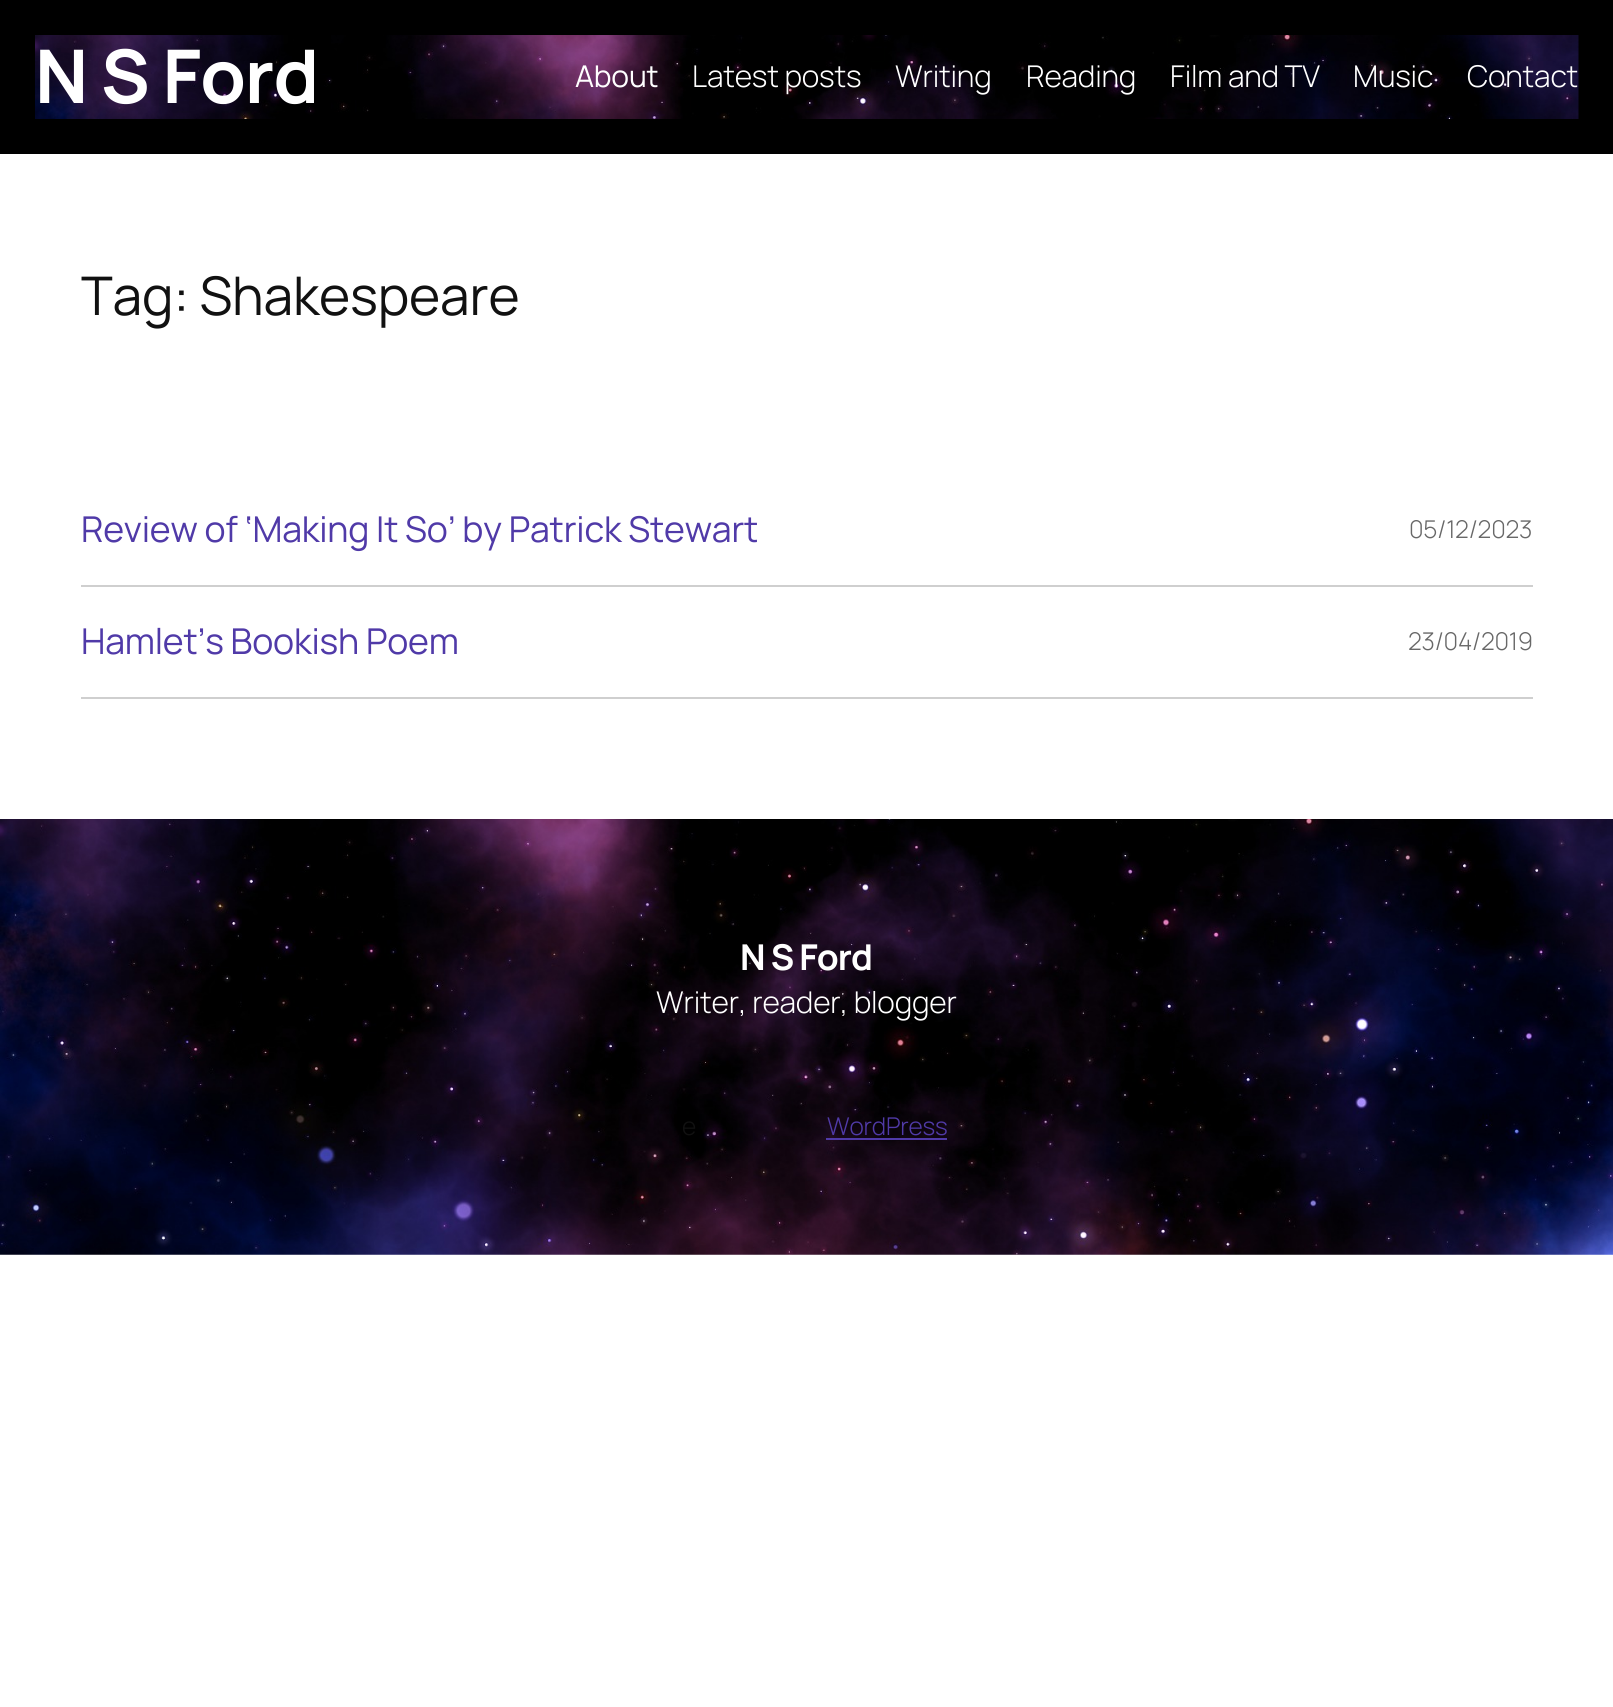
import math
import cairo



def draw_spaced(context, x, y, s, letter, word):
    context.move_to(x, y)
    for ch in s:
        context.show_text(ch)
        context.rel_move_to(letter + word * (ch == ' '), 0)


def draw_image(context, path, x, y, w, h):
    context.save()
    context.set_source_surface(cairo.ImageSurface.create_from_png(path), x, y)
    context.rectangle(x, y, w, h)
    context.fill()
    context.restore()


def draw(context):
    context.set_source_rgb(1, 1, 1)
    context.paint()
    context.set_source_rgb(0, 0, 0)
    context.rectangle(0, 0, 1613, 154)
    context.fill()
    draw_image(context, "images/1.png", 35, 35, 1544, 84)
    context.set_source_rgb(207 / 255, 207 / 255, 207 / 255)
    context.rectangle(81, 585, 1452, 2)
    context.fill()
    context.rectangle(81, 697, 1452, 2)
    context.fill()
    draw_image(context, "images/2.png", 0, 819, 1613, 436)
    context.set_source_rgb(80 / 255, 58 / 255, 168 / 255)
    context.rectangle(826, 1138, 121, 2)
    context.fill()
    context.select_font_face("Manrope", cairo.FontSlant.NORMAL, cairo.FontWeight.BOLD)
    context.set_font_size(74)
    context.set_source_rgb(1, 1, 1)
    draw_spaced(context, 35, 103, "N S Ford", -1, 0)
    context.select_font_face("Manrope")
    context.set_font_size(30)
    draw_spaced(context, 575, 87, "About", -0.2, 0)
    context.select_font_face("Manrope Light")
    draw_spaced(context, 692, 87, "Latest posts", -0.2, 0)
    draw_spaced(context, 895, 87, "Writing", -0.2, 0)
    draw_spaced(context, 1026, 87, "Reading", -0.2, 0)
    draw_spaced(context, 1170, 87, "Film and TV", -0.2, 0)
    draw_spaced(context, 1353, 87, "Music", -0.2, 0)
    draw_spaced(context, 1467, 87, "Contact", -0.2, 0)
    context.select_font_face("Manrope")
    context.set_font_size(53.25)
    context.set_source_rgb(17 / 255, 17 / 255, 17 / 255)
    draw_spaced(context, 81, 315, "Tag: Shakespeare", -0.2, 0)
    context.set_font_size(35.6)
    context.set_source_rgb(80 / 255, 58 / 255, 168 / 255)
    draw_spaced(context, 81, 542, "Review of ‘Making It So’ by Patrick Stewart", -0.2, 0)
    context.select_font_face("Manrope Light")
    context.set_font_size(24.5)
    context.set_source_rgb(104 / 255, 104 / 255, 104 / 255)
    draw_spaced(context, 1409, 538, "05/12/2023", -0.2, 0)
    context.select_font_face("Manrope")
    context.set_font_size(35.6)
    context.set_source_rgb(80 / 255, 58 / 255, 168 / 255)
    draw_spaced(context, 81, 654, "Hamlet’s Bookish Poem", -0.2, 0)
    context.select_font_face("Manrope Light")
    context.set_font_size(24.5)
    context.set_source_rgb(104 / 255, 104 / 255, 104 / 255)
    draw_spaced(context, 1408, 650, "23/04/2019", -0.2, 0)
    context.select_font_face("Manrope", cairo.FontSlant.NORMAL, cairo.FontWeight.BOLD)
    context.set_font_size(35.6)
    context.set_source_rgb(1, 1, 1)
    draw_spaced(context, 740, 970, "N S Ford", -1, 0)
    context.select_font_face("Manrope Light")
    context.set_font_size(30)
    draw_spaced(context, 656, 1013, "Writer, reader, blogger", -0.2, 0)
    context.set_font_size(24.5)
    context.set_source_rgb(17 / 255, 17 / 255, 17 / 255)
    draw_spaced(context, 682, 1135, "e", -0.2, 0)
    context.set_source_rgb(80 / 255, 58 / 255, 168 / 255)
    draw_spaced(context, 827, 1135, "WordPress", -0.2, 0)


surface = cairo.ImageSurface(cairo.Format.RGB24, 1613, 1707)
context = cairo.Context(surface)
options = cairo.FontOptions()
options.set_hint_metrics(cairo.HintMetrics.OFF)
options.set_hint_style(cairo.HintStyle.NONE)
context.set_font_options(options)
context.set_miter_limit(4)
draw(context)
surface.write_to_png("out.png")
